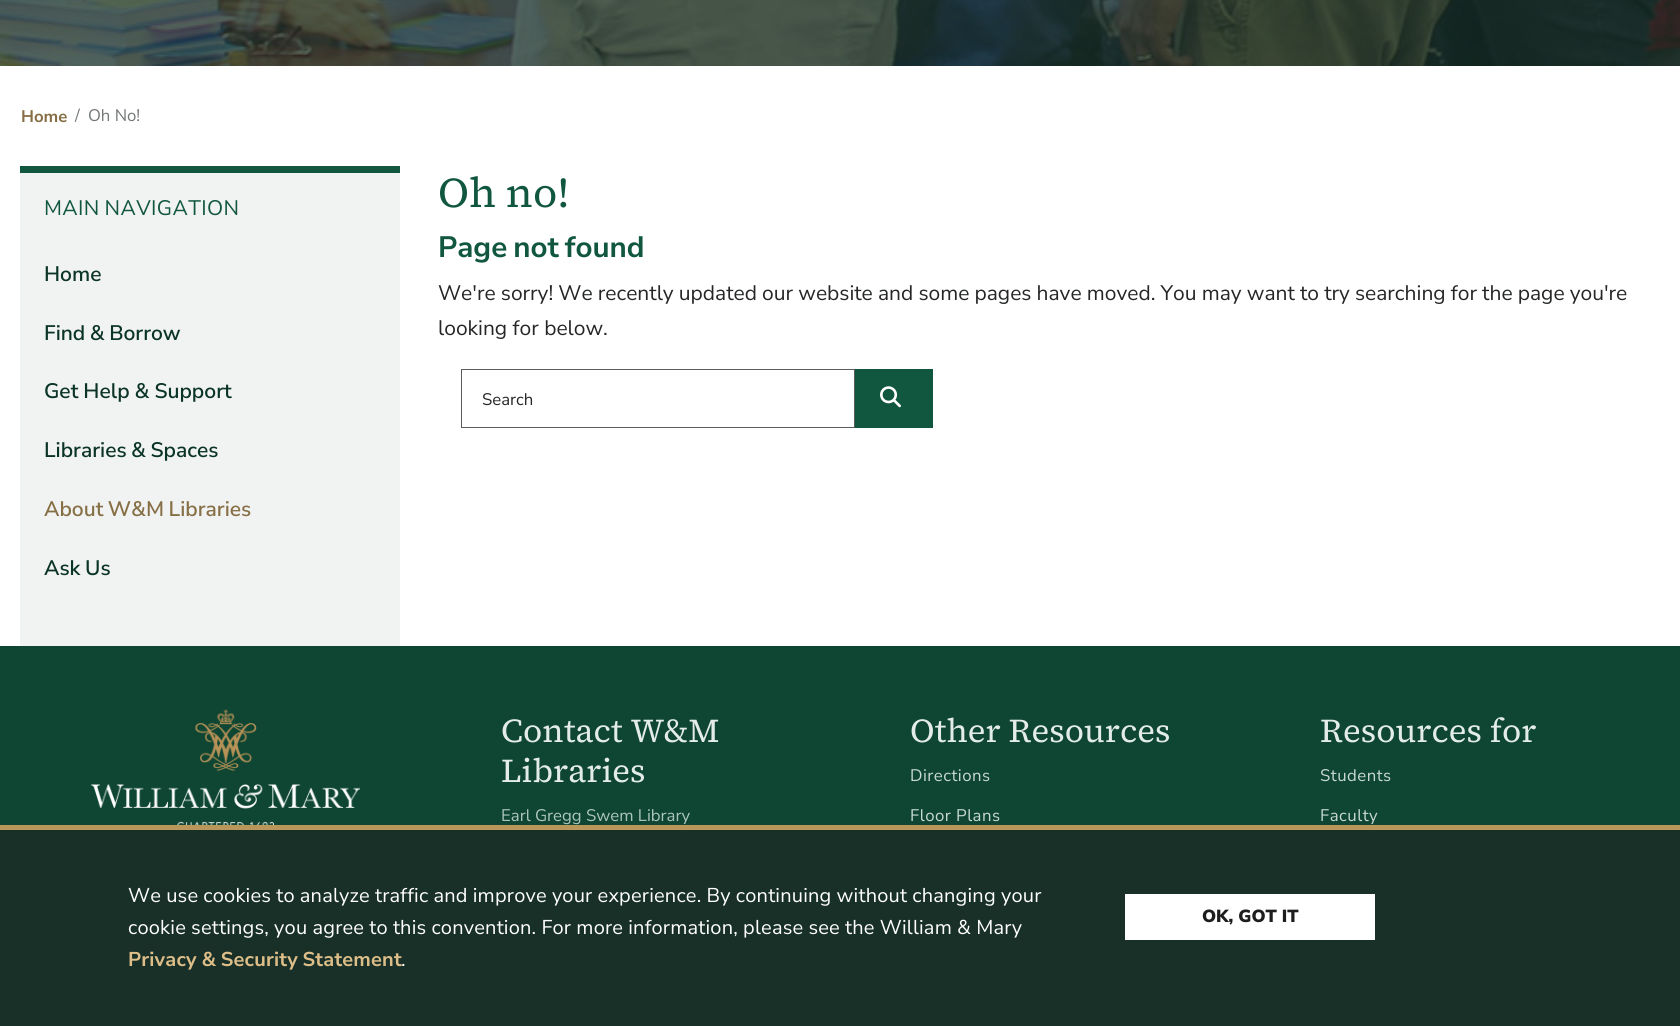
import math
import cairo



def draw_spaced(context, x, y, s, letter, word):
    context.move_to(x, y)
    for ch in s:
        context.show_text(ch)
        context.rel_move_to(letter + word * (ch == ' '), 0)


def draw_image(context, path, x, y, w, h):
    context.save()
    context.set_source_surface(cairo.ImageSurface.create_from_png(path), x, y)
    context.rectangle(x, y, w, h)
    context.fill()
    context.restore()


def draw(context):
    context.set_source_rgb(1, 1, 1)
    context.paint()
    draw_image(context, "images/1.png", 0, 0, 1680, 66)
    context.set_source_rgb(241 / 255, 242 / 255, 242 / 255)
    context.rectangle(20, 173, 380, 473)
    context.fill()
    context.set_source_rgb(17 / 255, 87 / 255, 64 / 255)
    context.rectangle(20, 166, 380, 7)
    context.fill()
    context.rectangle(461.5, 369.5, 393, 58)
    context.set_source_rgb(89 / 255, 93 / 255, 93 / 255)
    context.set_line_width(1)
    context.stroke()
    context.set_source_rgb(17 / 255, 87 / 255, 64 / 255)
    context.rectangle(855, 369, 78, 59)
    context.fill()
    draw_image(context, "images/2.png", 880, 386, 21, 22)
    context.set_source_rgb(14 / 255, 70 / 255, 51 / 255)
    context.rectangle(0, 646, 1680, 179)
    context.fill()
    draw_image(context, "images/3.png", 91, 709, 269, 116)
    context.set_source_rgb(24 / 255, 48 / 255, 40 / 255)
    context.rectangle(0, 830, 1680, 196)
    context.fill()
    context.set_source_rgb(185 / 255, 151 / 255, 91 / 255)
    context.rectangle(0, 825, 1680, 5)
    context.fill()
    context.set_source_rgb(1, 1, 1)
    context.rectangle(1125, 894, 250, 46)
    context.fill()
    context.select_font_face("Nunito Sans", cairo.FontSlant.NORMAL, cairo.FontWeight.BOLD)
    context.set_font_size(16.75)
    context.set_source_rgb(134 / 255, 111 / 255, 69 / 255)
    context.move_to(21, 122)
    context.show_text("Home")
    context.select_font_face("Nunito Sans")
    context.set_source_rgb(114 / 255, 119 / 255, 119 / 255)
    context.move_to(75, 121)
    context.show_text("/")
    context.move_to(88, 121)
    context.show_text("Oh No!")
    context.set_font_size(21)
    context.set_source_rgb(17 / 255, 87 / 255, 64 / 255)
    draw_spaced(context, 44, 215, "MAIN NAVIGATION", 0.4, -1)
    context.select_font_face("Nunito Sans SemiBold")
    context.set_source_rgb(10 / 255, 52 / 255, 38 / 255)
    context.move_to(44, 281)
    context.show_text("Home")
    draw_spaced(context, 44, 340, "Find & Borrow", 0, -1)
    draw_spaced(context, 44, 398, "Get Help & Support", 0, -0.5)
    draw_spaced(context, 44, 457, "Libraries & Spaces", 0, -1)
    context.set_source_rgb(134 / 255, 111 / 255, 69 / 255)
    draw_spaced(context, 44, 516, "About W&M Libraries", 0, -1)
    context.set_source_rgb(10 / 255, 52 / 255, 38 / 255)
    draw_spaced(context, 44, 575, "Ask Us", 0, -1)
    context.select_font_face("Source Serif 4")
    context.set_font_size(42)
    context.set_source_rgb(17 / 255, 87 / 255, 64 / 255)
    context.move_to(438, 207)
    context.show_text("Oh no!")
    context.select_font_face("Nunito Sans", cairo.FontSlant.NORMAL, cairo.FontWeight.BOLD)
    context.set_font_size(29.5)
    draw_spaced(context, 438, 257, "Page not found", 0, -2)
    context.select_font_face("Nunito Sans")
    context.set_font_size(21)
    context.set_source_rgb(37 / 255, 38 / 255, 38 / 255)
    draw_spaced(context, 438, 300, "We're sorry! We recently updated our website and some pages have moved. You may want to try searching for the page you're", 0, -0.25)
    context.move_to(438, 335)
    context.show_text("looking for below.")
    context.set_font_size(16.75)
    context.move_to(482, 405)
    context.show_text("Search")
    context.select_font_face("Source Serif 4")
    context.set_font_size(33.25)
    context.set_source_rgb(228 / 255, 236 / 255, 233 / 255)
    context.move_to(501, 742)
    context.show_text("Contact W&M")
    context.move_to(501, 782)
    context.show_text("Libraries")
    context.select_font_face("Nunito Sans")
    context.set_font_size(16.75)
    context.set_source_rgb(174 / 255, 197 / 255, 188 / 255)
    context.move_to(501, 821)
    context.show_text("Earl Gregg Swem Library")
    context.select_font_face("Source Serif 4")
    context.set_font_size(33.25)
    context.set_source_rgb(228 / 255, 236 / 255, 233 / 255)
    context.move_to(910, 742)
    context.show_text("Other Resources")
    context.select_font_face("Nunito Sans")
    context.set_font_size(16.75)
    context.set_source_rgb(201 / 255, 217 / 255, 211 / 255)
    draw_spaced(context, 910, 781, "Directions", 0.5, 0)
    draw_spaced(context, 910, 821, "Floor Plans", 0.5, 0)
    context.select_font_face("Source Serif 4")
    context.set_font_size(33.25)
    context.set_source_rgb(228 / 255, 236 / 255, 233 / 255)
    context.move_to(1320, 742)
    context.show_text("Resources for")
    context.select_font_face("Nunito Sans")
    context.set_font_size(16.75)
    context.set_source_rgb(201 / 255, 217 / 255, 211 / 255)
    draw_spaced(context, 1320, 781, "Students", 0.5, 0)
    draw_spaced(context, 1320, 821, "Faculty", 0.5, 0)
    context.set_font_size(20)
    context.set_source_rgb(1, 1, 1)
    draw_spaced(context, 128, 902, "We use cookies to analyze traffic and improve your experience. By continuing without changing your", 0.2, -0.25)
    draw_spaced(context, 128, 934, "cookie settings, you agree to this convention. For more information, please see the William & Mary", 0.2, -0.25)
    context.select_font_face("Nunito Sans", cairo.FontSlant.NORMAL, cairo.FontWeight.BOLD)
    context.set_source_rgb(221 / 255, 190 / 255, 136 / 255)
    draw_spaced(context, 128, 966, "Privacy & Security Statement", 0.2, -1)
    context.select_font_face("Nunito Sans")
    context.set_source_rgb(1, 1, 1)
    draw_spaced(context, 401, 966, ".", 0.2, 0)
    context.select_font_face("Nunito Sans Black")
    context.set_font_size(17.5)
    context.set_source_rgb(29 / 255, 29 / 255, 29 / 255)
    context.move_to(1202, 922)
    context.show_text("OK, GOT IT")


surface = cairo.ImageSurface(cairo.Format.RGB24, 1680, 1026)
context = cairo.Context(surface)
options = cairo.FontOptions()
options.set_hint_metrics(cairo.HintMetrics.OFF)
options.set_hint_style(cairo.HintStyle.NONE)
context.set_font_options(options)
context.set_miter_limit(4)
draw(context)
surface.write_to_png("out.png")
